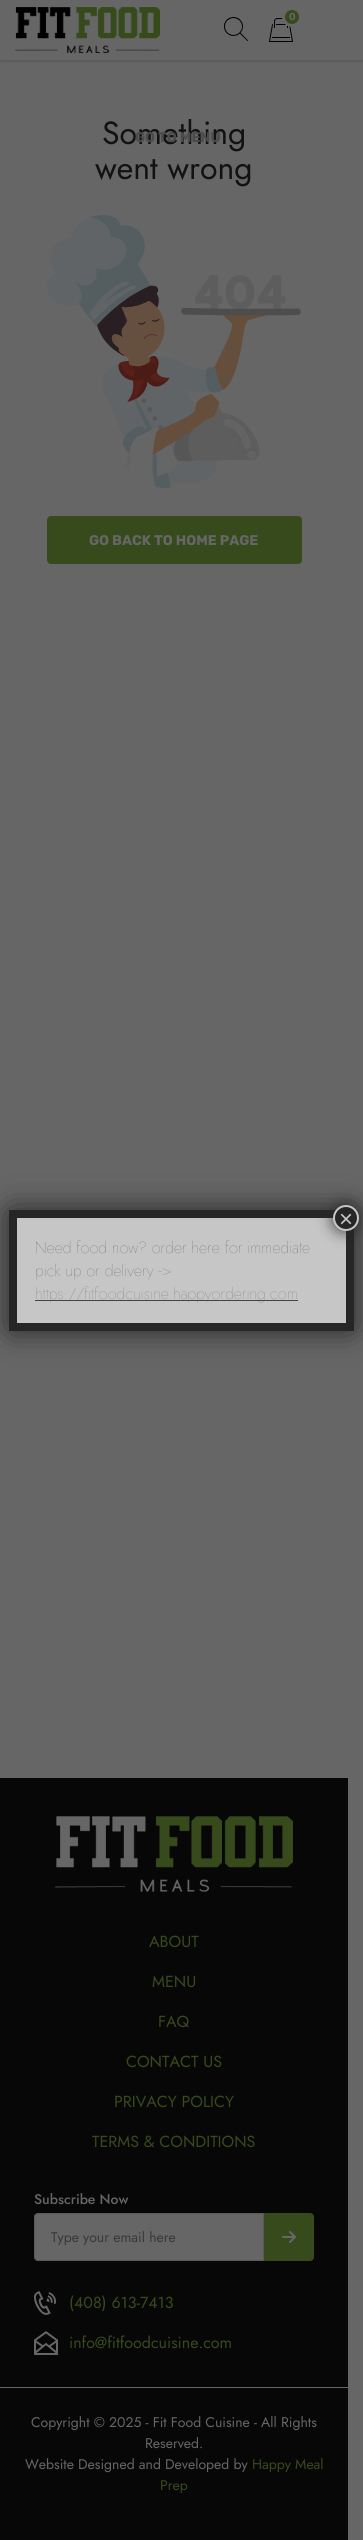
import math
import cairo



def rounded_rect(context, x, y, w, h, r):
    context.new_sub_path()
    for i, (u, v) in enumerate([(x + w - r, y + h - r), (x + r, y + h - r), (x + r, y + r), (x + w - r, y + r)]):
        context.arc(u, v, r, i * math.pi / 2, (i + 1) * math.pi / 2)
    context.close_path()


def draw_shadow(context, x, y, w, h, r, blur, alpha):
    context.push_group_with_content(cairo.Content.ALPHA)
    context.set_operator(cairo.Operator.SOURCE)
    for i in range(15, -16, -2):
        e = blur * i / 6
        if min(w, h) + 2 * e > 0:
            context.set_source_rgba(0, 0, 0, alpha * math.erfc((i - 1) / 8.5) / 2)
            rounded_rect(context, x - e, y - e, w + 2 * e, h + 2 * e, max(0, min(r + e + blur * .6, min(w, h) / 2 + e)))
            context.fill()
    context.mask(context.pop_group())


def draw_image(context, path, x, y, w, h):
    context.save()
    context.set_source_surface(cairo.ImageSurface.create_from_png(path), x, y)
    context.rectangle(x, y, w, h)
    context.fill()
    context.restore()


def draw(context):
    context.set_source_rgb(102 / 255, 102 / 255, 102 / 255)
    context.paint()
    context.save()
    context.rectangle(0, 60, 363, 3)
    context.clip()
    context.set_source_rgb(7 / 255, 7 / 255, 7 / 255)
    draw_shadow(context, 0, -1, 363, 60, 0, 2.5, 0.5)
    context.restore()
    draw_image(context, "images/1.png", 15, 7, 145, 46)
    draw_image(context, "images/2.png", 269, 18, 24, 24)
    context.set_source_rgb(54 / 255, 74 / 255, 28 / 255)
    context.arc(292, 17, 8.5, 0, 2 * math.pi)
    context.fill_preserve()
    context.set_source_rgb(102 / 255, 102 / 255, 102 / 255)
    context.set_line_width(3)
    context.stroke()
    draw_image(context, "images/3.png", 224, 17, 24, 24)
    draw_image(context, "images/4.png", 47, 215, 254, 273)
    context.set_source_rgb(54 / 255, 74 / 255, 28 / 255)
    rounded_rect(context, 47.5, 516.5, 254, 47, 3.5)
    context.fill_preserve()
    context.set_line_width(1)
    context.stroke()
    context.set_source_rgb(7 / 255, 7 / 255, 7 / 255)
    context.rectangle(0, 1778, 348, 762)
    context.fill()
    draw_image(context, "images/5.png", 55, 1816, 238, 76)
    context.set_source_rgb(102 / 255, 102 / 255, 102 / 255)
    context.new_path()
    context.move_to(38, 2213.5)
    context.line_to(263.5, 2213.5)
    context.line_to(263.5, 2260.5)
    context.line_to(38, 2260.5)
    context.curve_to(36, 2260.5, 34.5, 2259, 34.5, 2257)
    context.line_to(34.5, 2217)
    context.curve_to(34.5, 2215, 36, 2213.5, 38, 2213.5)
    context.close_path()
    context.fill_preserve()
    context.set_source_rgb(89 / 255, 89 / 255, 89 / 255)
    context.stroke()
    context.set_source_rgb(54 / 255, 74 / 255, 28 / 255)
    context.new_path()
    context.move_to(264.5, 2213.5)
    context.line_to(310, 2213.5)
    context.curve_to(312, 2213.5, 313.5, 2215, 313.5, 2217)
    context.line_to(313.5, 2257)
    context.curve_to(313.5, 2259, 312, 2260.5, 310, 2260.5)
    context.line_to(264.5, 2260.5)
    context.close_path()
    context.fill_preserve()
    context.stroke()
    draw_image(context, "images/6.png", 282, 2231, 14, 12)
    draw_image(context, "images/7.png", 34, 2291, 22, 24)
    draw_image(context, "images/8.png", 34, 2331, 24, 24)
    context.set_source_rgb(102 / 255, 102 / 255, 102 / 255)
    context.rectangle(0, 2387, 348, 1)
    context.fill()
    context.set_source_rgb(39 / 255, 39 / 255, 39 / 255)
    draw_shadow(context, 9, 1210, 345, 121, 3, 15, 1)
    context.set_source_rgb(198 / 255, 198 / 255, 198 / 255)
    context.rectangle(17, 1218, 329, 105)
    context.fill()
    context.new_path()
    context.move_to(13, 1214)
    context.line_to(350, 1214)
    context.line_to(350, 1327)
    context.line_to(13, 1327)
    context.close_path()
    context.set_source_rgb(38 / 255, 38 / 255, 38 / 255)
    context.set_line_width(8)
    context.stroke()
    context.set_source_rgb(39 / 255, 39 / 255, 39 / 255)
    draw_shadow(context, 332, 1204, 28, 28, 14, 7.5, 0.75)
    context.set_source_rgb(38 / 255, 38 / 255, 38 / 255)
    context.arc(346, 1218, 12, 0, 2 * math.pi)
    context.fill_preserve()
    context.set_source_rgb(198 / 255, 198 / 255, 198 / 255)
    context.set_line_width(2)
    context.stroke()
    context.set_source_rgb(68 / 255, 68 / 255, 68 / 255)
    context.rectangle(35, 1300, 263, 1)
    context.fill()
    context.select_font_face("Jost", cairo.FontSlant.NORMAL, cairo.FontWeight.BOLD)
    context.set_font_size(10)
    context.set_source_rgb(102 / 255, 102 / 255, 102 / 255)
    context.move_to(289, 20)
    context.show_text("0")
    context.select_font_face("Jost")
    context.set_font_size(32)
    context.set_source_rgb(18 / 255, 18 / 255, 18 / 255)
    context.move_to(102, 144)
    context.show_text("Something")
    context.select_font_face("Rubik Light")
    context.set_font_size(14)
    context.set_source_rgb(75 / 255, 75 / 255, 75 / 255)
    context.move_to(135, 142)
    context.show_text("GO TO MENU")
    context.select_font_face("Jost")
    context.set_font_size(32)
    context.set_source_rgb(18 / 255, 18 / 255, 18 / 255)
    context.move_to(95, 179)
    context.show_text("went wrong")
    context.select_font_face("Rubik Light")
    context.set_font_size(14)
    context.set_source_rgb(102 / 255, 102 / 255, 102 / 255)
    context.move_to(89, 545)
    context.show_text("GO BACK TO HOME PAGE")
    context.select_font_face("Jost")
    context.set_font_size(16)
    context.set_source_rgb(54 / 255, 74 / 255, 28 / 255)
    context.move_to(149, 1947)
    context.show_text("ABOUT")
    context.move_to(152, 1987)
    context.show_text("MENU")
    context.move_to(158, 2027)
    context.show_text("FAQ")
    context.move_to(126, 2067)
    context.show_text("CONTACT US")
    context.move_to(114, 2107)
    context.show_text("PRIVACY POLICY")
    context.move_to(92, 2147)
    context.show_text("TERMS & CONDITIONS")
    context.select_font_face("Jost Medium")
    context.set_font_size(14)
    context.set_source_rgb(102 / 255, 102 / 255, 102 / 255)
    context.move_to(34, 2204)
    context.show_text("Subscribe Now")
    context.select_font_face("Jost")
    context.set_source_rgb(56 / 255, 56 / 255, 56 / 255)
    context.move_to(51, 2242)
    context.show_text("Type your email here")
    context.set_font_size(16)
    context.set_source_rgb(54 / 255, 74 / 255, 28 / 255)
    context.move_to(69, 2308)
    context.show_text("(408) 613-7413")
    context.move_to(69, 2348)
    context.show_text("info@fitfoodcuisine.com")
    context.set_font_size(14)
    context.set_source_rgb(102 / 255, 102 / 255, 102 / 255)
    context.move_to(31, 2427)
    context.show_text("Copyright © 2025 - Fit Food Cuisine - All Rights")
    context.move_to(145, 2448)
    context.show_text("Reserved.")
    context.move_to(25, 2469)
    context.show_text("Website Designed and Developed by")
    context.set_source_rgb(54 / 255, 74 / 255, 28 / 255)
    context.move_to(252, 2469)
    context.show_text("Happy Meal")
    context.move_to(160, 2490)
    context.show_text("Prep")
    context.select_font_face("Liberation Sans")
    context.set_font_size(24)
    context.set_source_rgb(198 / 255, 198 / 255, 198 / 255)
    context.move_to(339, 1227)
    context.show_text("×")
    context.select_font_face("Jost Thin")
    context.set_font_size(16)
    context.set_source_rgb(38 / 255, 38 / 255, 38 / 255)
    context.move_to(35, 1253)
    context.show_text("Need food now? order here for immediate")
    context.move_to(35, 1276)
    context.show_text("pick up or delivery ->")
    context.set_source_rgb(68 / 255, 68 / 255, 68 / 255)
    context.move_to(35, 1299)
    context.show_text("https://fitfoodcuisine.happyordering.com")


surface = cairo.ImageSurface(cairo.Format.RGB24, 363, 2540)
context = cairo.Context(surface)
options = cairo.FontOptions()
options.set_hint_metrics(cairo.HintMetrics.OFF)
options.set_hint_style(cairo.HintStyle.NONE)
context.set_font_options(options)
context.set_miter_limit(4)
draw(context)
surface.write_to_png("out.png")
